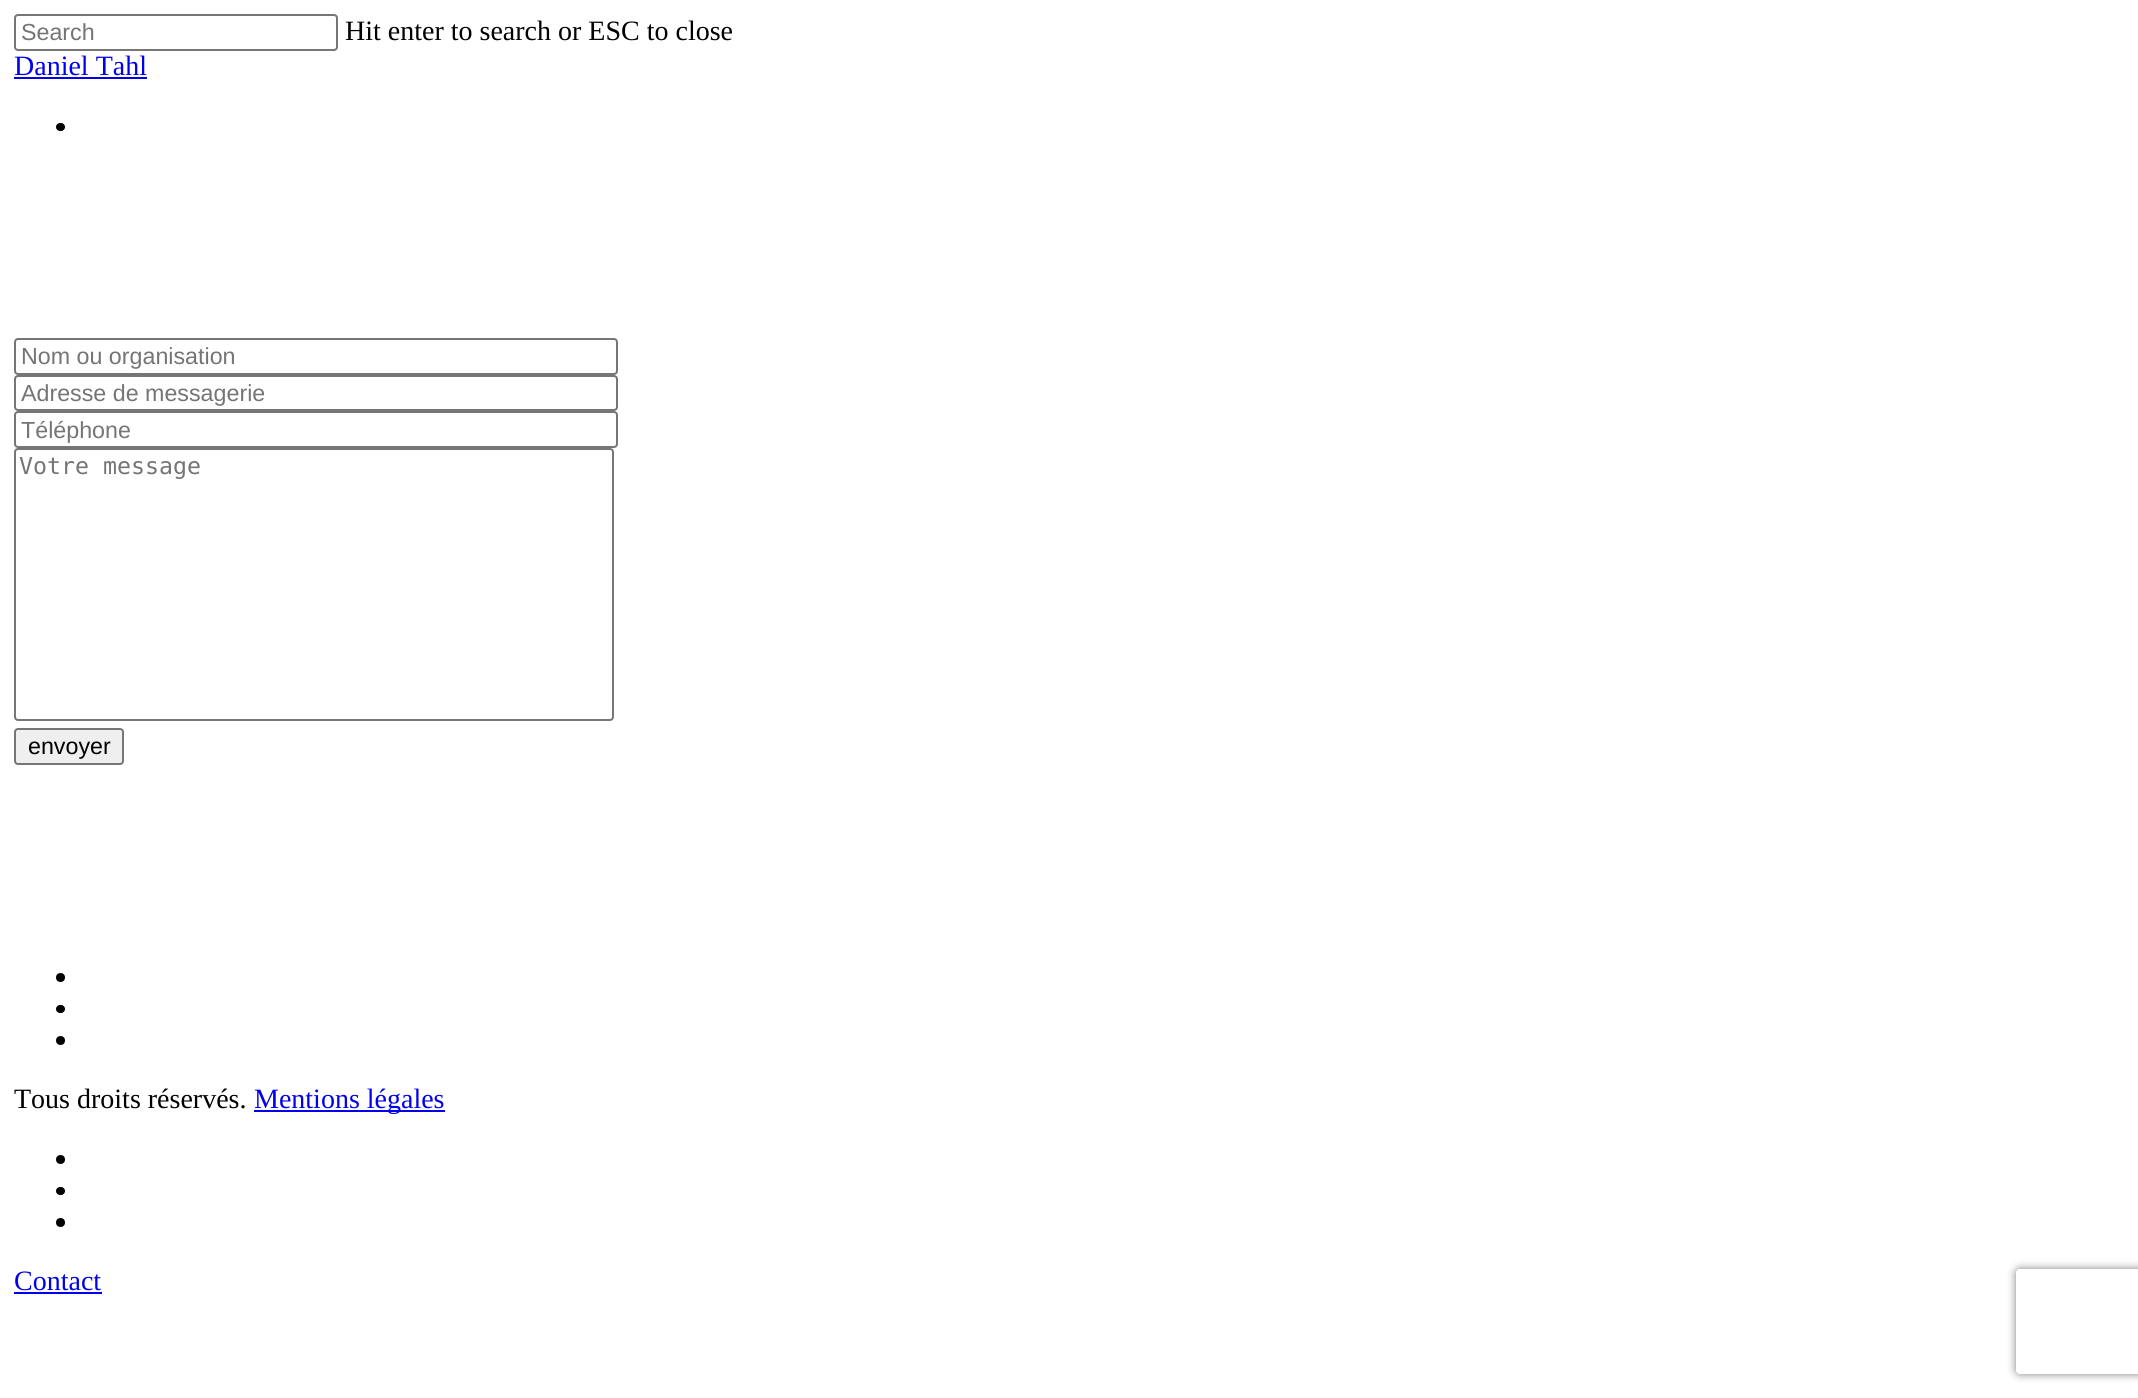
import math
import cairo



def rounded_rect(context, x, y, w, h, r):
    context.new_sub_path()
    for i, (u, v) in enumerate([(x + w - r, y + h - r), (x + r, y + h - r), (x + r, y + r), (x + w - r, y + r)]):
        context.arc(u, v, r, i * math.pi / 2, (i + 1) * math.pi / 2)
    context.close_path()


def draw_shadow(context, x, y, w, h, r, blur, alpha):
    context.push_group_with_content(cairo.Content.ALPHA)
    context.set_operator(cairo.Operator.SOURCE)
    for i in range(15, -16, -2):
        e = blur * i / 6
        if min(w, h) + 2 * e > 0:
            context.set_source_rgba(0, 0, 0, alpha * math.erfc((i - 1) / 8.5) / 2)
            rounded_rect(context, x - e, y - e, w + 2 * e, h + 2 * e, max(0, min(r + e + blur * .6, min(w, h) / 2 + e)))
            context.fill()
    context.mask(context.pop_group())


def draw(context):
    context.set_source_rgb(1, 1, 1)
    context.paint()
    rounded_rect(context, 15, 15, 322, 35, 3)
    context.set_source_rgb(118 / 255, 118 / 255, 118 / 255)
    context.stroke()
    context.set_source_rgb(0, 0, 238 / 255)
    context.rectangle(14, 77, 133, 2)
    context.fill()
    context.set_source_rgb(0, 0, 0)
    rounded_rect(context, 56, 123, 9, 8, 4)
    context.fill()
    rounded_rect(context, 15, 339, 602, 35, 3)
    context.set_source_rgb(118 / 255, 118 / 255, 118 / 255)
    context.stroke()
    rounded_rect(context, 15, 376, 602, 34, 3)
    context.stroke()
    rounded_rect(context, 15, 412, 602, 35, 3)
    context.stroke()
    rounded_rect(context, 15, 449, 598, 271, 3)
    context.stroke()
    context.set_source_rgb(239 / 255, 239 / 255, 239 / 255)
    rounded_rect(context, 15, 729, 108, 35, 3)
    context.fill_preserve()
    context.set_source_rgb(118 / 255, 118 / 255, 118 / 255)
    context.stroke()
    context.set_source_rgb(0, 0, 0)
    context.arc(60.5, 977.5, 4.5, 0, 2 * math.pi)
    context.fill()
    rounded_rect(context, 56, 1005, 9, 8, 4)
    context.fill()
    context.arc(60.5, 1040.5, 4.5, 0, 2 * math.pi)
    context.fill()
    context.set_source_rgb(0, 0, 238 / 255)
    context.rectangle(254, 1110, 191, 2)
    context.fill()
    context.set_source_rgb(0, 0, 0)
    context.arc(60.5, 1159.5, 4.5, 0, 2 * math.pi)
    context.fill()
    rounded_rect(context, 56, 1187, 9, 8, 4)
    context.fill()
    context.arc(60.5, 1222.5, 4.5, 0, 2 * math.pi)
    context.fill()
    context.set_source_rgb(0, 0, 238 / 255)
    context.rectangle(14, 1292, 88, 2)
    context.fill()
    context.save()
    context.set_fill_rule(cairo.FillRule.EVEN_ODD)
    context.new_path()
    context.move_to(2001, 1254)
    context.line_to(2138, 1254)
    context.line_to(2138, 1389)
    context.line_to(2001, 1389)
    context.close_path()
    context.move_to(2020, 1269)
    context.line_to(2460, 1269)
    context.curve_to(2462, 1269, 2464, 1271, 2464, 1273)
    context.line_to(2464, 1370)
    context.curve_to(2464, 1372, 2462, 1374, 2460, 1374)
    context.line_to(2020, 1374)
    context.curve_to(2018, 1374, 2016, 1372, 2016, 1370)
    context.line_to(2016, 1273)
    context.curve_to(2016, 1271, 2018, 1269, 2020, 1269)
    context.close_path()
    context.clip()
    context.set_source_rgb(128 / 255, 128 / 255, 128 / 255)
    draw_shadow(context, 2016, 1269, 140, 105, 4, 4.5, 1)
    context.restore()
    context.select_font_face("Liberation Sans")
    context.set_font_size(23.25)
    context.set_source_rgb(117 / 255, 117 / 255, 117 / 255)
    context.move_to(21, 40)
    context.show_text("Search")
    context.select_font_face("Liberation Serif")
    context.set_font_size(28)
    context.set_source_rgb(0, 0, 0)
    context.move_to(345, 40)
    context.show_text("Hit enter to search or ESC to close")
    context.set_source_rgb(0, 0, 238 / 255)
    context.move_to(14, 75)
    context.show_text("Daniel Tahl")
    context.select_font_face("Liberation Sans")
    context.set_font_size(23.25)
    context.set_source_rgb(117 / 255, 117 / 255, 117 / 255)
    context.move_to(21, 364)
    context.show_text("Nom ou organisation")
    context.move_to(21, 401)
    context.show_text("Adresse de messagerie")
    context.move_to(21, 438)
    context.show_text("Téléphone")
    context.select_font_face("DejaVu Sans Mono")
    context.move_to(19, 474)
    context.show_text("Votre message")
    context.select_font_face("Liberation Sans")
    context.set_source_rgb(0, 0, 0)
    context.move_to(28, 754)
    context.show_text("envoyer")
    context.select_font_face("Liberation Serif")
    context.set_font_size(28)
    context.move_to(14, 1108)
    context.show_text("Tous droits réservés.")
    context.set_source_rgb(0, 0, 238 / 255)
    context.move_to(254, 1108)
    context.show_text("Mentions légales")
    context.move_to(14, 1290)
    context.show_text("Contact")


surface = cairo.ImageSurface(cairo.Format.RGB24, 2138, 1398)
context = cairo.Context(surface)
options = cairo.FontOptions()
options.set_hint_metrics(cairo.HintMetrics.OFF)
options.set_hint_style(cairo.HintStyle.NONE)
context.set_font_options(options)
context.set_miter_limit(4)
draw(context)
surface.write_to_png("out.png")
